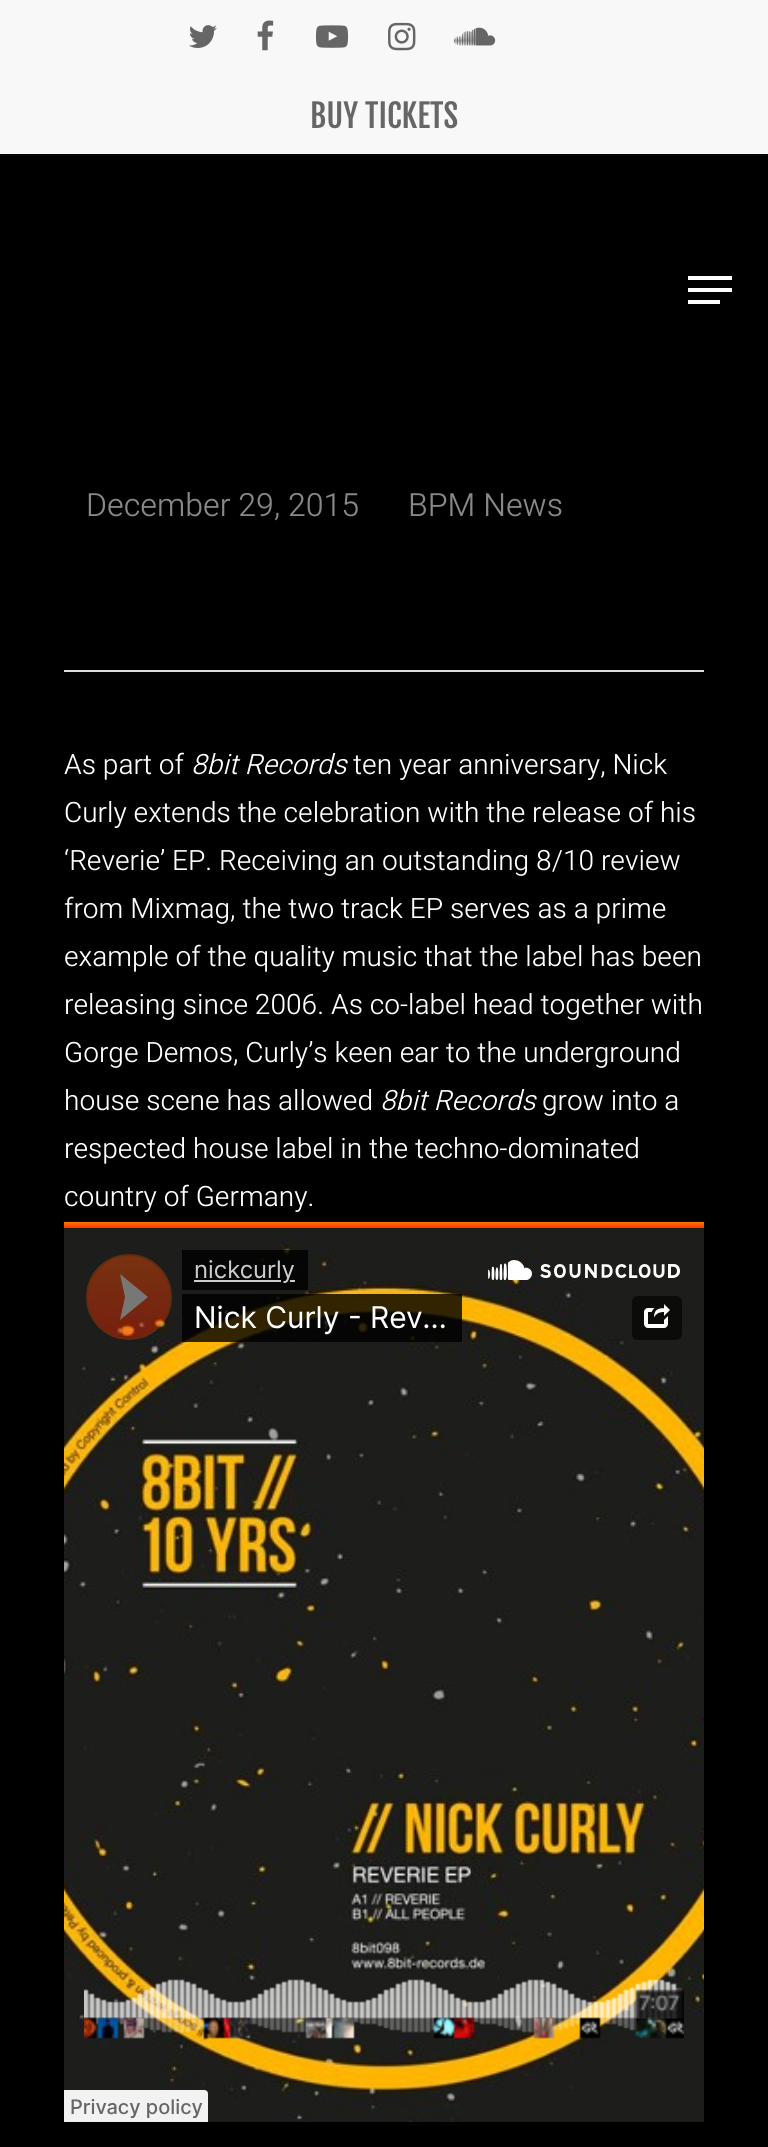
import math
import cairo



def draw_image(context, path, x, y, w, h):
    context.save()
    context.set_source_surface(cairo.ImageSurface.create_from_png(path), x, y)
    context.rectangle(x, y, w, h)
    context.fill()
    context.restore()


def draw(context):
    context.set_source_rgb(0, 0, 0)
    context.paint()
    context.set_source_rgb(248 / 255, 248 / 255, 248 / 255)
    context.rectangle(0, 0, 768, 154)
    context.fill()
    draw_image(context, "images/1.png", 189, 25, 28, 23)
    draw_image(context, "images/2.png", 257, 20, 17, 31)
    draw_image(context, "images/3.png", 316, 25, 32, 23)
    draw_image(context, "images/4.png", 388, 22, 28, 29)
    draw_image(context, "images/5.png", 454, 27, 42, 19)
    context.set_source_rgb(1, 1, 1)
    context.rectangle(688, 276, 44, 4)
    context.fill()
    context.rectangle(688, 300, 32, 4)
    context.fill()
    context.rectangle(688, 288, 44, 4)
    context.fill()
    context.set_source_rgb(221 / 255, 221 / 255, 221 / 255)
    context.rectangle(64, 670, 640, 2)
    context.fill()
    draw_image(context, "images/6.png", 64, 1222, 640, 900)
    context.select_font_face("Fjalla One")
    context.set_font_size(32)
    context.set_source_rgb(102 / 255, 102 / 255, 102 / 255)
    context.move_to(310, 128)
    context.show_text("BUY TICKETS")
    context.select_font_face("Heebo Light")
    context.set_source_rgb(136 / 255, 136 / 255, 136 / 255)
    context.move_to(86, 516)
    context.show_text("December 29, 2015")
    context.move_to(408, 516)
    context.show_text("BPM News")
    context.set_font_size(28)
    context.set_source_rgb(1, 1, 1)
    context.move_to(64, 774)
    context.show_text("As part of")
    context.select_font_face("Heebo Light", cairo.FontSlant.ITALIC)
    context.move_to(191, 774)
    context.show_text("8bit Records")
    context.select_font_face("Heebo Light")
    context.move_to(353, 774)
    context.show_text("ten year anniversary, Nick")
    context.move_to(64, 822)
    context.show_text("Curly extends the celebration with the release of his")
    context.move_to(64, 870)
    context.show_text("‘Reverie’ EP. Receiving an outstanding 8/10 review")
    context.move_to(64, 918)
    context.show_text("from Mixmag, the two track EP serves as a prime")
    context.move_to(64, 966)
    context.show_text("example of the quality music that the label has been")
    context.move_to(64, 1014)
    context.show_text("releasing since 2006. As co-label head together with")
    context.move_to(64, 1062)
    context.show_text("Gorge Demos, Curly’s keen ear to the underground")
    context.move_to(64, 1110)
    context.show_text("house scene has allowed")
    context.select_font_face("Heebo Light", cairo.FontSlant.ITALIC)
    context.move_to(380, 1110)
    context.show_text("8bit Records")
    context.select_font_face("Heebo Light")
    context.move_to(542, 1110)
    context.show_text("grow into a")
    context.move_to(64, 1158)
    context.show_text("respected house label in the techno-dominated")
    context.move_to(64, 1206)
    context.show_text("country of Germany.")


surface = cairo.ImageSurface(cairo.Format.RGB24, 768, 2147)
context = cairo.Context(surface)
options = cairo.FontOptions()
options.set_hint_metrics(cairo.HintMetrics.OFF)
options.set_hint_style(cairo.HintStyle.NONE)
context.set_font_options(options)
context.set_miter_limit(4)
draw(context)
surface.write_to_png("out.png")
